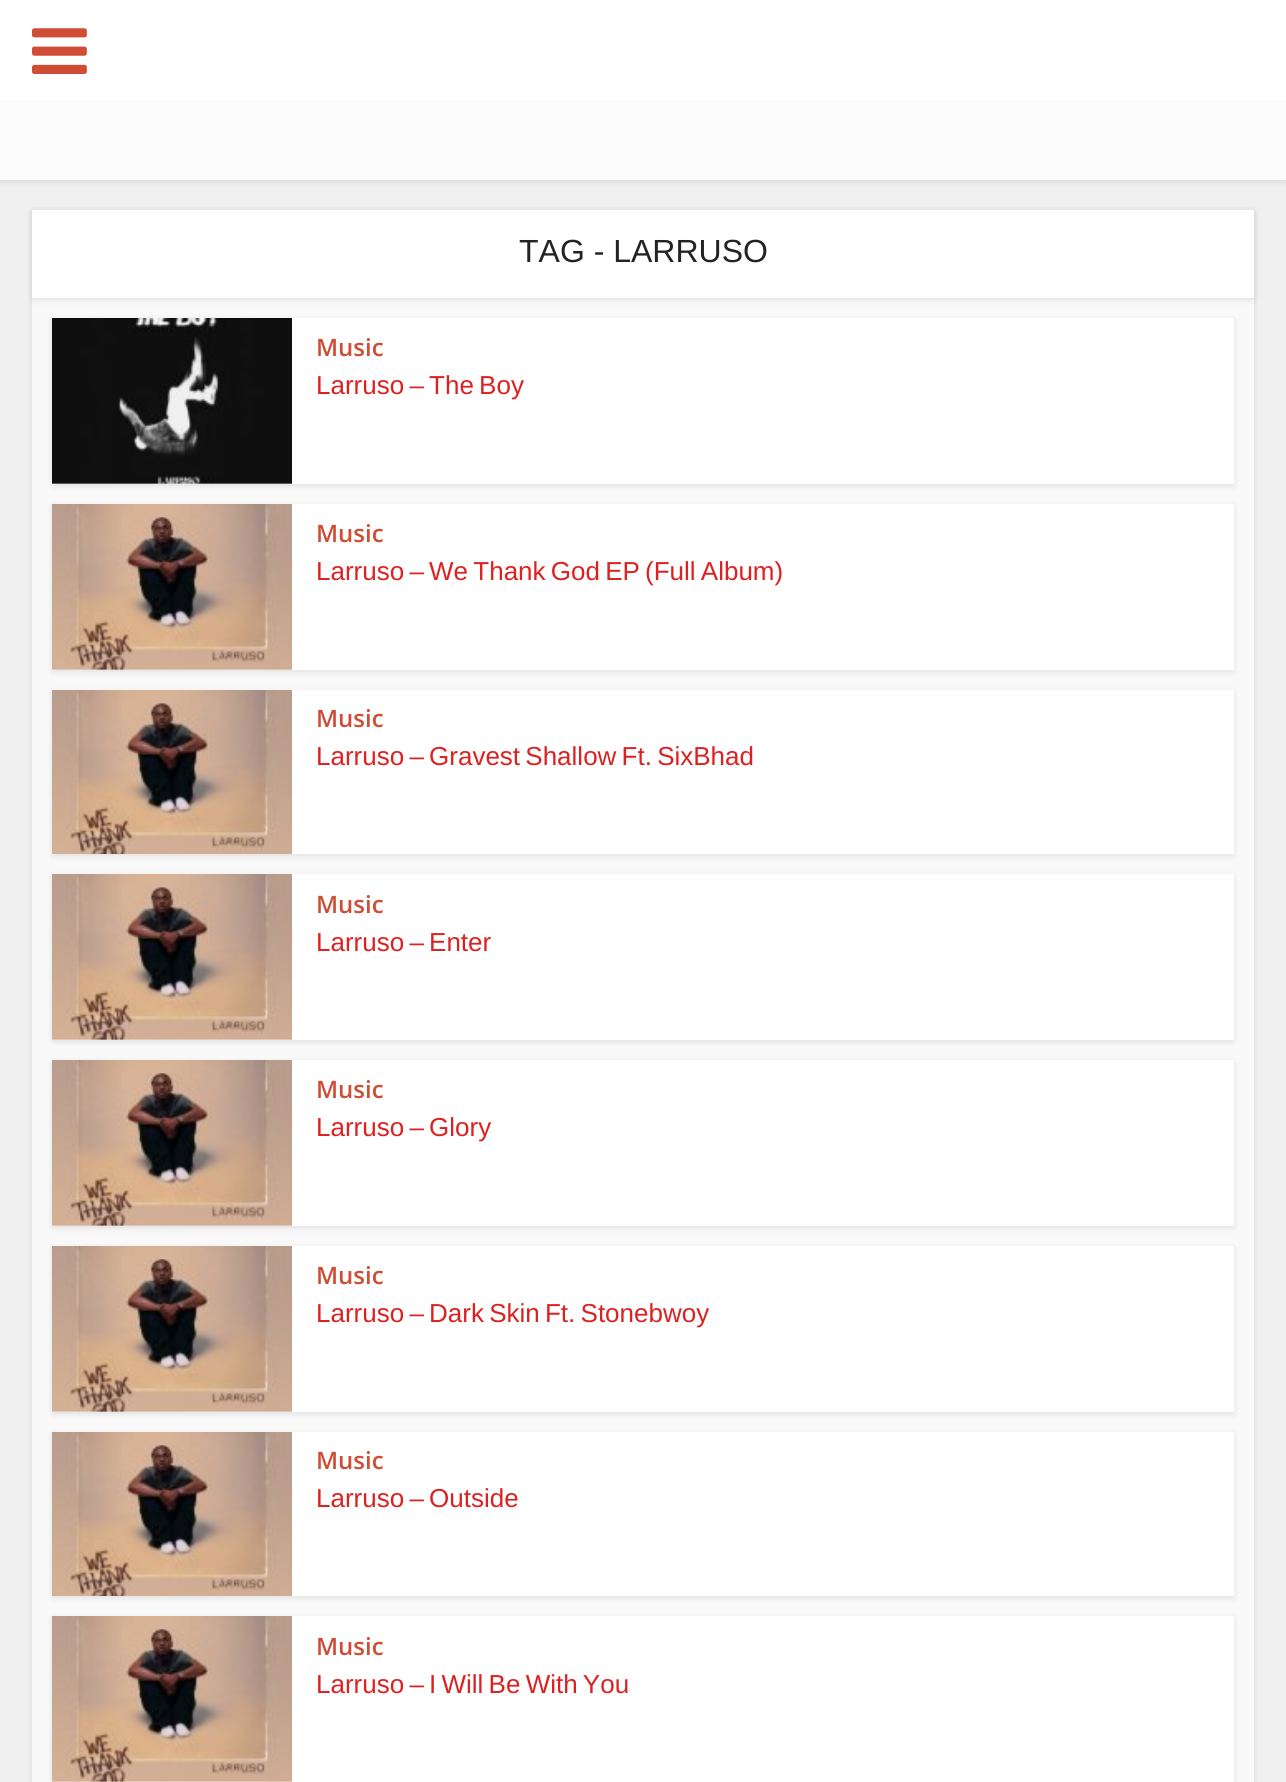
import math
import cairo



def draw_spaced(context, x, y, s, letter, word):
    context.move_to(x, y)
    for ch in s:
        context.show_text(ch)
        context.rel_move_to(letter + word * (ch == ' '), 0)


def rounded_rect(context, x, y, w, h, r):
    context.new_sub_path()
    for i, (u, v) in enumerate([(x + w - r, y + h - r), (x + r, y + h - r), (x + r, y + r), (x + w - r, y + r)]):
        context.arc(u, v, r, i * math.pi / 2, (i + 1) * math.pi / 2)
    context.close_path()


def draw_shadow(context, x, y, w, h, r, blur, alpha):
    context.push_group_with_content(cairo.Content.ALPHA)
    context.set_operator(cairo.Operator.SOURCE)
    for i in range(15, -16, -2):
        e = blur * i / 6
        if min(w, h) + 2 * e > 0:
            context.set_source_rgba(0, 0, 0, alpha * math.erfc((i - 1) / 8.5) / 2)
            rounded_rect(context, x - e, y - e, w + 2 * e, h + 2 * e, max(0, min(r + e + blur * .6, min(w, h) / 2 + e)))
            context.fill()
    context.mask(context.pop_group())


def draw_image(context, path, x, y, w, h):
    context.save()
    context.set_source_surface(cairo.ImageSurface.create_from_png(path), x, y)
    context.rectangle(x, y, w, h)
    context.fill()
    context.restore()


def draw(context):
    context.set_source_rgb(240 / 255, 240 / 255, 240 / 255)
    context.paint()
    context.set_source_rgb(0, 0, 0)
    draw_shadow(context, 0, 2, 1286, 180, 0, 3, 0.1)
    context.set_source_rgb(1, 1, 1)
    context.rectangle(0, 0, 1286, 100)
    context.fill()
    draw_image(context, "images/1.png", 32, 28, 55, 46)
    context.set_source_rgb(252 / 255, 252 / 255, 252 / 255)
    context.rectangle(0, 100, 1286, 80)
    context.fill()
    context.set_source_rgb(0, 0, 0)
    draw_shadow(context, 32, 212, 1222, 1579, 0, 3, 0.1)
    context.set_source_rgb(249 / 255, 249 / 255, 249 / 255)
    context.rectangle(32, 298, 1222, 1484)
    context.fill()
    context.set_source_rgb(0, 0, 0)
    draw_shadow(context, 32, 212, 1222, 88, 0, 3, 0.1)
    context.set_source_rgb(1, 1, 1)
    context.rectangle(32, 210, 1222, 88)
    context.fill()
    context.set_source_rgb(0, 0, 0)
    draw_shadow(context, 52, 320, 1182, 166, 0, 3, 0.1)
    context.set_source_rgb(1, 1, 1)
    context.rectangle(52, 318, 1182, 166)
    context.fill()
    draw_image(context, "images/2.png", 52, 318, 240, 166)
    context.set_source_rgb(0, 0, 0)
    draw_shadow(context, 52, 506, 1182, 166, 0, 3, 0.1)
    context.set_source_rgb(1, 1, 1)
    context.rectangle(52, 504, 1182, 166)
    context.fill()
    draw_image(context, "images/3.png", 52, 504, 240, 166)
    context.set_source_rgb(0, 0, 0)
    draw_shadow(context, 52, 692, 1182, 164, 0, 3, 0.1)
    context.set_source_rgb(1, 1, 1)
    context.rectangle(292, 690, 942, 164)
    context.fill()
    draw_image(context, "images/4.png", 52, 690, 240, 164)
    context.set_source_rgb(0, 0, 0)
    draw_shadow(context, 52, 876, 1182, 166, 0, 3, 0.1)
    context.set_source_rgb(1, 1, 1)
    context.rectangle(52, 874, 1182, 166)
    context.fill()
    draw_image(context, "images/3.png", 52, 874, 240, 166)
    context.set_source_rgb(0, 0, 0)
    draw_shadow(context, 52, 1062, 1182, 166, 0, 3, 0.1)
    context.set_source_rgb(1, 1, 1)
    context.rectangle(52, 1060, 1182, 166)
    context.fill()
    draw_image(context, "images/3.png", 52, 1060, 240, 166)
    context.set_source_rgb(0, 0, 0)
    draw_shadow(context, 52, 1248, 1182, 166, 0, 3, 0.1)
    context.set_source_rgb(1, 1, 1)
    context.rectangle(52, 1246, 1182, 166)
    context.fill()
    draw_image(context, "images/3.png", 52, 1246, 240, 166)
    context.set_source_rgb(0, 0, 0)
    draw_shadow(context, 52, 1434, 1182, 164, 0, 3, 0.1)
    context.set_source_rgb(1, 1, 1)
    context.rectangle(292, 1432, 942, 164)
    context.fill()
    draw_image(context, "images/4.png", 52, 1432, 240, 164)
    context.set_source_rgb(0, 0, 0)
    draw_shadow(context, 52, 1618, 1182, 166, 0, 3, 0.1)
    context.set_source_rgb(1, 1, 1)
    context.rectangle(52, 1616, 1182, 166)
    context.fill()
    draw_image(context, "images/3.png", 52, 1616, 240, 166)
    context.select_font_face("Liberation Sans")
    context.set_font_size(32)
    context.set_source_rgb(35 / 255, 35 / 255, 35 / 255)
    context.move_to(519, 262)
    context.show_text("TAG - LARRUSO")
    context.select_font_face("Open Sans SemiBold")
    context.set_font_size(24)
    context.set_source_rgb(207 / 255, 77 / 255, 53 / 255)
    context.move_to(316, 356)
    context.show_text("Music")
    context.select_font_face("Liberation Sans")
    context.set_font_size(26)
    context.set_source_rgb(221 / 255, 33 / 255, 33 / 255)
    draw_spaced(context, 316, 394, "Larruso – The Boy", 0, -2)
    context.select_font_face("Open Sans SemiBold")
    context.set_font_size(24)
    context.set_source_rgb(207 / 255, 77 / 255, 53 / 255)
    context.move_to(316, 542)
    context.show_text("Music")
    context.select_font_face("Liberation Sans")
    context.set_font_size(26)
    context.set_source_rgb(221 / 255, 33 / 255, 33 / 255)
    draw_spaced(context, 316, 580, "Larruso – We Thank God EP (Full Album)", 0, -2)
    context.select_font_face("Open Sans SemiBold")
    context.set_font_size(24)
    context.set_source_rgb(207 / 255, 77 / 255, 53 / 255)
    context.move_to(316, 727)
    context.show_text("Music")
    context.select_font_face("Liberation Sans")
    context.set_font_size(26)
    context.set_source_rgb(221 / 255, 33 / 255, 33 / 255)
    draw_spaced(context, 316, 765, "Larruso – Gravest Shallow Ft. SixBhad", 0, -2)
    context.select_font_face("Open Sans SemiBold")
    context.set_font_size(24)
    context.set_source_rgb(207 / 255, 77 / 255, 53 / 255)
    context.move_to(316, 913)
    context.show_text("Music")
    context.select_font_face("Liberation Sans")
    context.set_font_size(26)
    context.set_source_rgb(221 / 255, 33 / 255, 33 / 255)
    draw_spaced(context, 316, 951, "Larruso – Enter", 0, -2)
    context.select_font_face("Open Sans SemiBold")
    context.set_font_size(24)
    context.set_source_rgb(207 / 255, 77 / 255, 53 / 255)
    context.move_to(316, 1098)
    context.show_text("Music")
    context.select_font_face("Liberation Sans")
    context.set_font_size(26)
    context.set_source_rgb(221 / 255, 33 / 255, 33 / 255)
    draw_spaced(context, 316, 1136, "Larruso – Glory", 0, -2)
    context.select_font_face("Open Sans SemiBold")
    context.set_font_size(24)
    context.set_source_rgb(207 / 255, 77 / 255, 53 / 255)
    context.move_to(316, 1284)
    context.show_text("Music")
    context.select_font_face("Liberation Sans")
    context.set_font_size(26)
    context.set_source_rgb(221 / 255, 33 / 255, 33 / 255)
    draw_spaced(context, 316, 1322, "Larruso – Dark Skin Ft. Stonebwoy", 0, -2)
    context.select_font_face("Open Sans SemiBold")
    context.set_font_size(24)
    context.set_source_rgb(207 / 255, 77 / 255, 53 / 255)
    context.move_to(316, 1469)
    context.show_text("Music")
    context.select_font_face("Liberation Sans")
    context.set_font_size(26)
    context.set_source_rgb(221 / 255, 33 / 255, 33 / 255)
    draw_spaced(context, 316, 1507, "Larruso – Outside", 0, -2)
    context.select_font_face("Open Sans SemiBold")
    context.set_font_size(24)
    context.set_source_rgb(207 / 255, 77 / 255, 53 / 255)
    context.move_to(316, 1655)
    context.show_text("Music")
    context.select_font_face("Liberation Sans")
    context.set_font_size(26)
    context.set_source_rgb(221 / 255, 33 / 255, 33 / 255)
    draw_spaced(context, 316, 1693, "Larruso – I Will Be With You", 0, -2)


surface = cairo.ImageSurface(cairo.Format.RGB24, 1286, 1782)
context = cairo.Context(surface)
options = cairo.FontOptions()
options.set_hint_metrics(cairo.HintMetrics.OFF)
options.set_hint_style(cairo.HintStyle.NONE)
context.set_font_options(options)
context.set_miter_limit(4)
draw(context)
surface.write_to_png("out.png")
